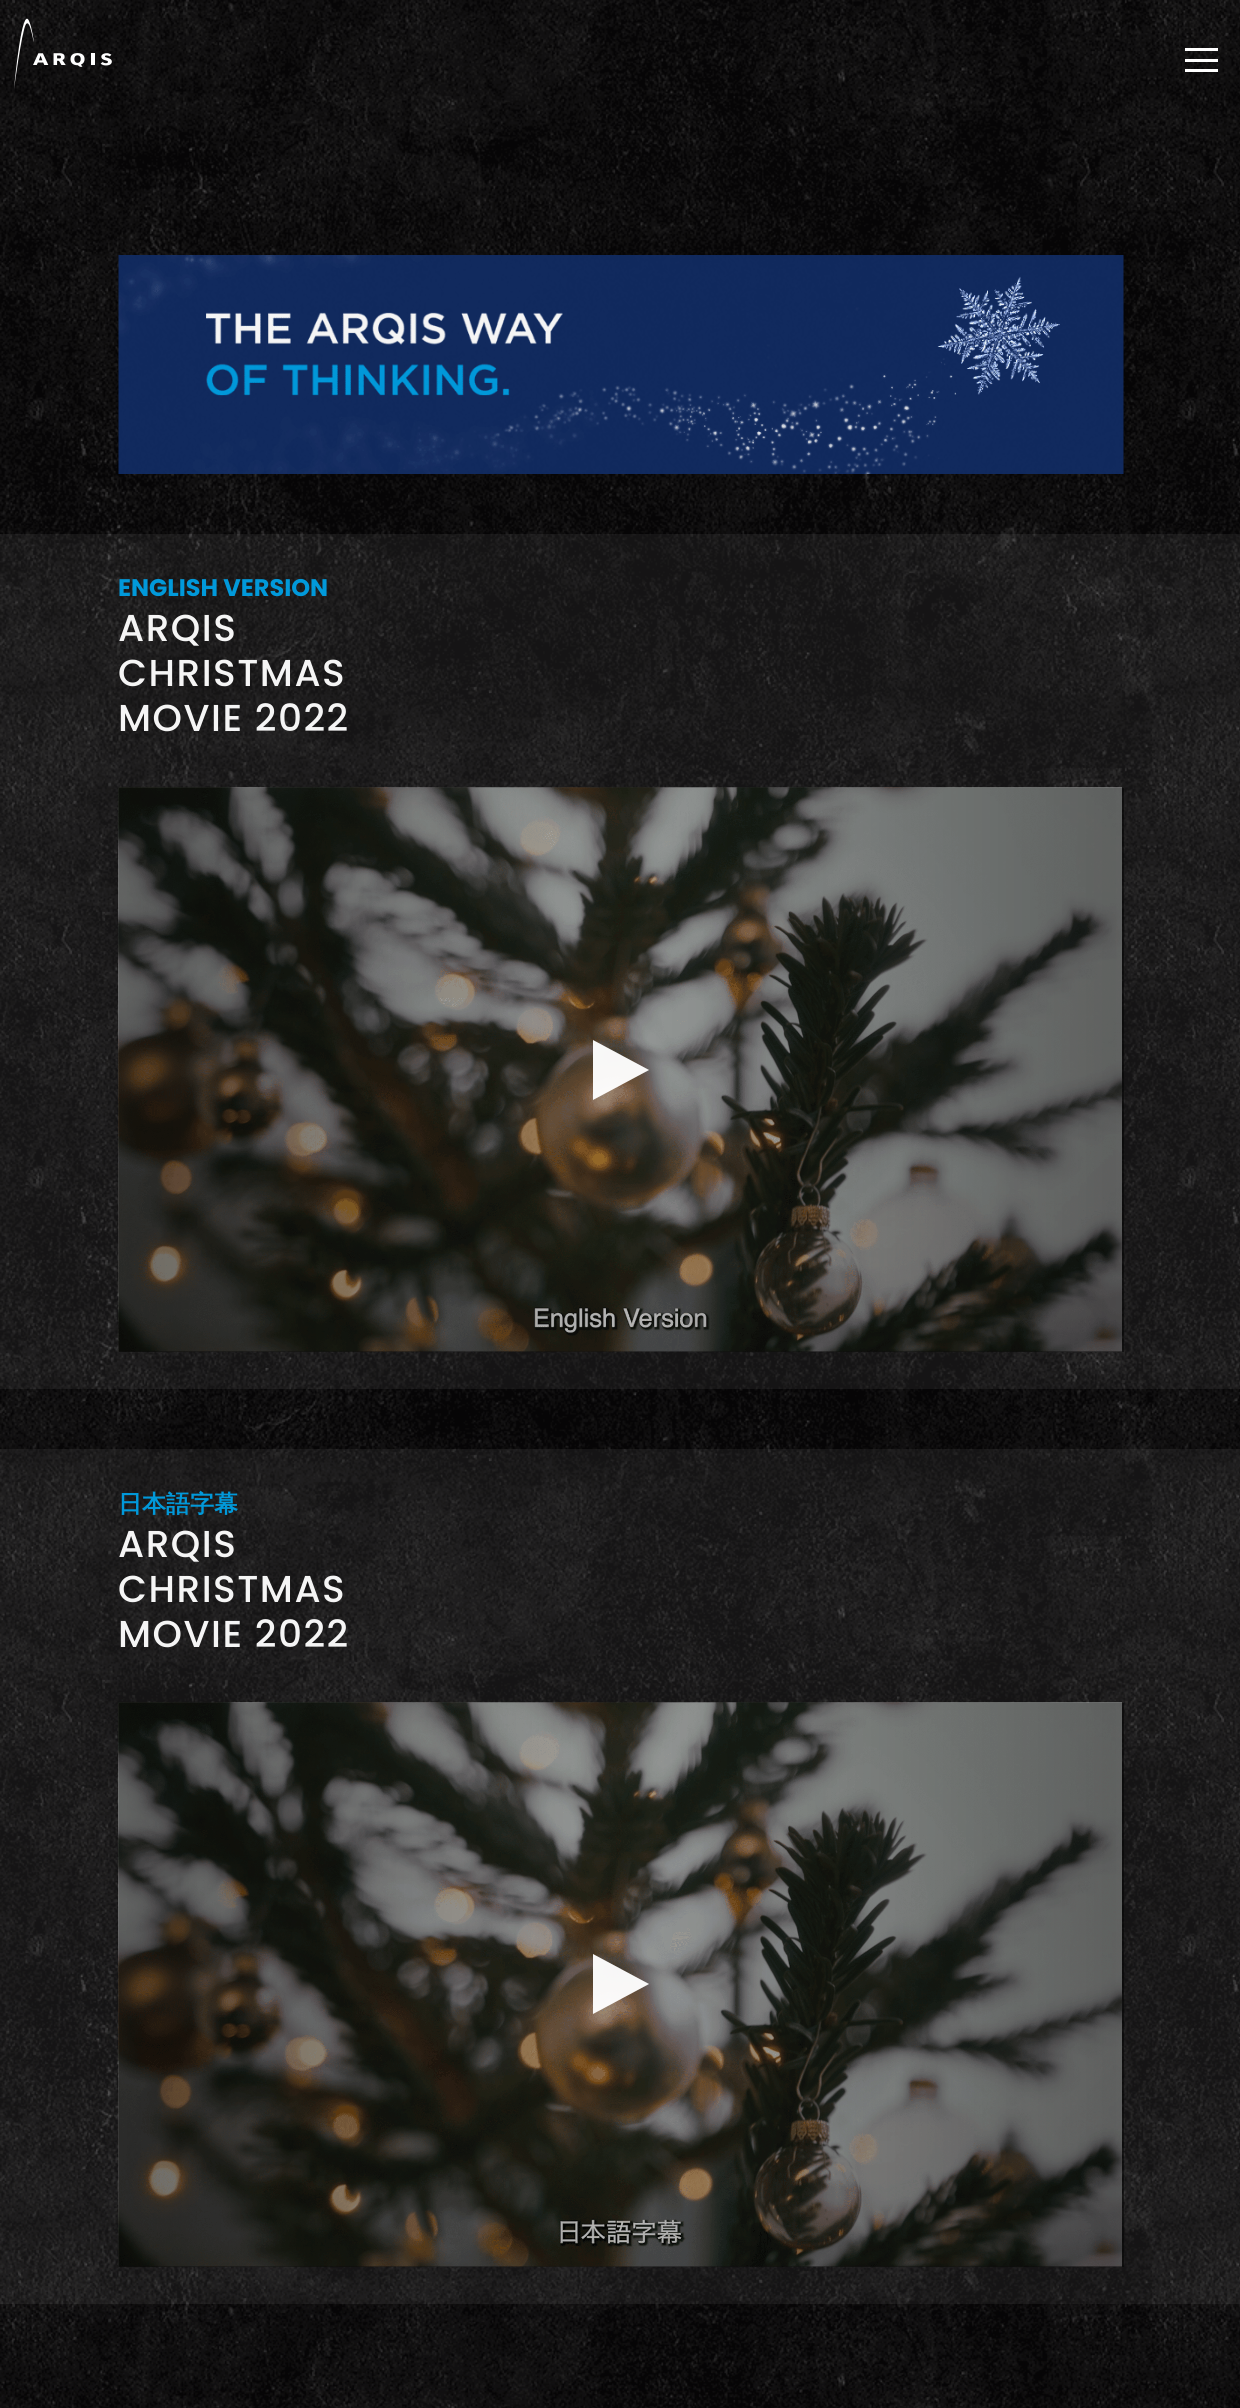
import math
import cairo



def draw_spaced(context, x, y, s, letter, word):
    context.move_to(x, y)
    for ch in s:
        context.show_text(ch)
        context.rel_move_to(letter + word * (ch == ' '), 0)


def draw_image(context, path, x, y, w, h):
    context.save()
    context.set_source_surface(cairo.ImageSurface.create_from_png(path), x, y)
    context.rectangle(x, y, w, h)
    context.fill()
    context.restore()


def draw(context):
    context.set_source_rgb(1, 1, 1)
    context.paint()
    draw_image(context, "images/2.png", 0, 0, 1240, 2408)
    draw_image(context, "images/1.png", 14, 18, 98, 71)
    context.set_source_rgb(1, 1, 1)
    context.rectangle(1185, 48, 33, 3)
    context.fill()
    context.rectangle(1185, 59, 33, 3)
    context.fill()
    context.rectangle(1185, 69, 33, 3)
    context.fill()
    draw_image(context, "images/3.png", 118, 255, 1006, 219)
    context.set_source_rgba(1, 1, 1, 0.06)
    context.rectangle(0, 534, 1240, 855)
    context.fill()
    draw_image(context, "images/4.png", 118, 787, 1004, 565)
    gradient = cairo.LinearGradient(-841, 1070, 134, 1070)
    gradient.add_color_stop_rgba(0, 0, 0, 0, 0.48)
    gradient.add_color_stop_rgba(0.5, 0, 0, 0, 0.24)
    gradient.add_color_stop_rgba(1, 0, 0, 0, 0.48)
    context.set_source(gradient)
    context.rectangle(119, 788, 15, 564)
    context.fill()
    gradient = cairo.LinearGradient(134, 1070, 1109, 1070)
    gradient.add_color_stop_rgba(0, 0, 0, 0, 0.48)
    gradient.add_color_stop_rgba(0.5, 0, 0, 0, 0.24)
    gradient.add_color_stop_rgba(1, 0, 0, 0, 0.48)
    context.set_source(gradient)
    context.rectangle(134, 788, 975, 564)
    context.fill()
    gradient = cairo.LinearGradient(1109, 1070, 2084, 1070)
    gradient.add_color_stop_rgba(0, 0, 0, 0, 0.48)
    gradient.add_color_stop_rgba(0.5, 0, 0, 0, 0.24)
    gradient.add_color_stop_rgba(1, 0, 0, 0, 0.48)
    context.set_source(gradient)
    context.rectangle(1109, 788, 15, 564)
    context.fill()
    context.set_source_rgba(1, 1, 1, 0.96)
    context.new_path()
    context.move_to(593, 1100)
    context.line_to(593, 1040)
    context.line_to(649, 1070)
    context.close_path()
    context.fill()
    context.set_source_rgba(1, 1, 1, 0.06)
    context.rectangle(0, 1449, 1240, 855)
    context.fill()
    draw_image(context, "images/5.png", 118, 1702, 1004, 565)
    gradient = cairo.LinearGradient(-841, 1985, 134, 1985)
    gradient.add_color_stop_rgba(0, 0, 0, 0, 0.48)
    gradient.add_color_stop_rgba(0.5, 0, 0, 0, 0.24)
    gradient.add_color_stop_rgba(1, 0, 0, 0, 0.48)
    context.set_source(gradient)
    context.rectangle(119, 1703, 15, 564)
    context.fill()
    gradient = cairo.LinearGradient(134, 1985, 1109, 1985)
    gradient.add_color_stop_rgba(0, 0, 0, 0, 0.48)
    gradient.add_color_stop_rgba(0.5, 0, 0, 0, 0.24)
    gradient.add_color_stop_rgba(1, 0, 0, 0, 0.48)
    context.set_source(gradient)
    context.rectangle(134, 1703, 975, 564)
    context.fill()
    gradient = cairo.LinearGradient(1109, 1985, 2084, 1985)
    gradient.add_color_stop_rgba(0, 0, 0, 0, 0.48)
    gradient.add_color_stop_rgba(0.5, 0, 0, 0, 0.24)
    gradient.add_color_stop_rgba(1, 0, 0, 0, 0.48)
    context.set_source(gradient)
    context.rectangle(1109, 1703, 15, 564)
    context.fill()
    context.set_source_rgba(1, 1, 1, 0.96)
    context.new_path()
    context.move_to(593, 2014)
    context.line_to(593, 1954)
    context.line_to(649, 1984)
    context.close_path()
    context.fill()
    context.select_font_face("Poppins", cairo.FontSlant.NORMAL, cairo.FontWeight.BOLD)
    context.set_font_size(24)
    context.set_source_rgb(1 / 255, 153 / 255, 218 / 255)
    context.move_to(118, 596)
    context.show_text("ENGLISH VERSION")
    context.select_font_face("Poppins Medium")
    context.set_font_size(37.5)
    context.set_source_rgb(245 / 255, 245 / 255, 245 / 255)
    draw_spaced(context, 118, 641, "ARQIS", 1.5, 0)
    draw_spaced(context, 118, 686, "CHRISTMAS", 1.5, 0)
    draw_spaced(context, 118, 731, "MOVIE 2022", 1.5, 0)
    context.select_font_face("WenQuanYi Zen Hei", cairo.FontSlant.NORMAL, cairo.FontWeight.BOLD)
    context.set_font_size(24)
    context.set_source_rgb(1 / 255, 153 / 255, 218 / 255)
    context.move_to(118, 1512)
    context.show_text("日本語字幕")
    context.select_font_face("Poppins Medium")
    context.set_font_size(37.5)
    context.set_source_rgb(245 / 255, 245 / 255, 245 / 255)
    draw_spaced(context, 118, 1557, "ARQIS", 1.5, 0)
    draw_spaced(context, 118, 1602, "CHRISTMAS", 1.5, 0)
    draw_spaced(context, 118, 1647, "MOVIE 2022", 1.5, 0)


surface = cairo.ImageSurface(cairo.Format.RGB24, 1240, 2408)
context = cairo.Context(surface)
options = cairo.FontOptions()
options.set_hint_metrics(cairo.HintMetrics.OFF)
options.set_hint_style(cairo.HintStyle.NONE)
context.set_font_options(options)
context.set_miter_limit(4)
draw(context)
surface.write_to_png("out.png")
